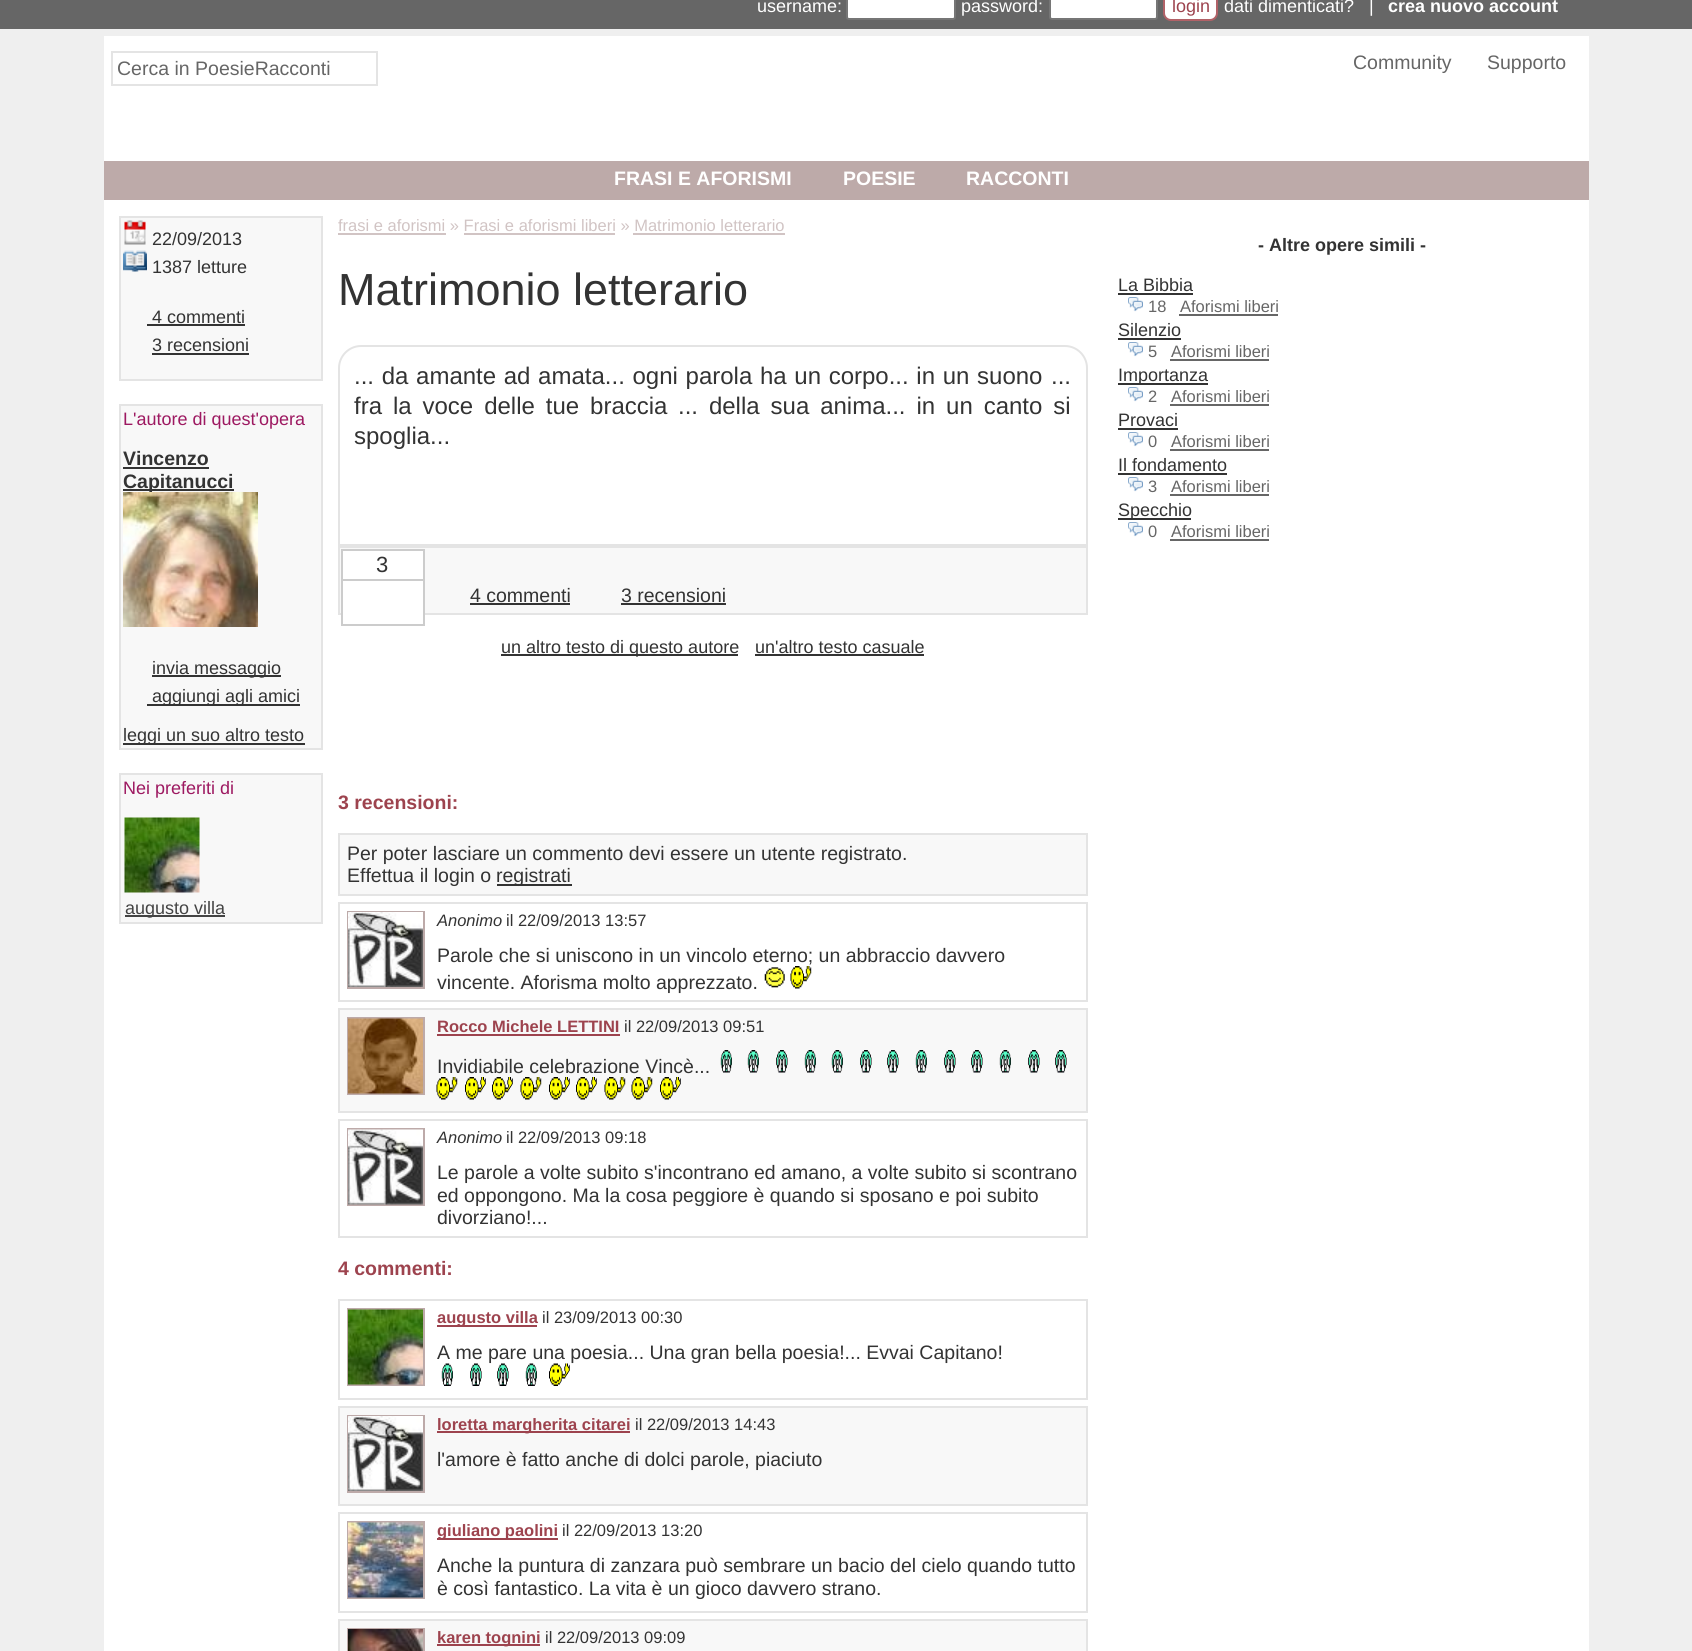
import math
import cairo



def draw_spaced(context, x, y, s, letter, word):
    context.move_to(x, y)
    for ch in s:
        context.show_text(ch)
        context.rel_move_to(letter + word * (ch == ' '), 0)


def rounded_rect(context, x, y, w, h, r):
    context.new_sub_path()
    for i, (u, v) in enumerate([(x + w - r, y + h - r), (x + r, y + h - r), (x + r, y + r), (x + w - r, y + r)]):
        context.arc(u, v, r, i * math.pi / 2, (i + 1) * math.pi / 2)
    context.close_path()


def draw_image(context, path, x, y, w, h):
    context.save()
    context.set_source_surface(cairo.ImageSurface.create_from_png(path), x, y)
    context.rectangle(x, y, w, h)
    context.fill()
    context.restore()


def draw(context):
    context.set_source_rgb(239 / 255, 239 / 255, 239 / 255)
    context.paint()
    context.set_source_rgb(102 / 255, 102 / 255, 102 / 255)
    context.rectangle(0, 0, 1692, 29)
    context.fill()
    context.set_source_rgb(1, 1, 1)
    rounded_rect(context, 847, -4, 108, 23, 2)
    context.fill_preserve()
    context.set_source_rgb(118 / 255, 118 / 255, 118 / 255)
    context.stroke()
    context.set_source_rgb(1, 1, 1)
    rounded_rect(context, 1050, -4, 107, 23, 2)
    context.fill_preserve()
    context.set_source_rgb(118 / 255, 118 / 255, 118 / 255)
    context.stroke()
    context.set_source_rgb(1, 1, 1)
    rounded_rect(context, 1164, -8, 53, 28, 7)
    context.fill_preserve()
    context.set_source_rgb(177 / 255, 97 / 255, 103 / 255)
    context.stroke()
    context.set_source_rgb(1, 1, 1)
    context.rectangle(104, 36, 1485, 1615)
    context.fill()
    context.rectangle(112, 52, 265, 33)
    context.set_source_rgb(228 / 255, 228 / 255, 228 / 255)
    context.stroke()
    context.set_source_rgb(189 / 255, 170 / 255, 169 / 255)
    context.rectangle(104, 161, 1485, 39)
    context.fill()
    context.set_source_rgb(248 / 255, 248 / 255, 248 / 255)
    context.rectangle(120, 217, 202, 163)
    context.fill_preserve()
    context.set_source_rgb(228 / 255, 228 / 255, 228 / 255)
    context.stroke()
    draw_image(context, "images/1.png", 124, 220, 22, 25)
    draw_image(context, "images/2.png", 123, 250, 24, 22)
    context.set_source_rgb(51 / 255, 51 / 255, 51 / 255)
    context.rectangle(147, 324, 98, 2)
    context.fill()
    context.rectangle(152, 353, 97, 2)
    context.fill()
    context.set_source_rgb(248 / 255, 248 / 255, 248 / 255)
    context.rectangle(120, 405, 202, 344)
    context.fill_preserve()
    context.set_source_rgb(228 / 255, 228 / 255, 228 / 255)
    context.stroke()
    context.set_source_rgb(51 / 255, 51 / 255, 51 / 255)
    context.rectangle(123, 467, 86, 2)
    context.fill()
    context.rectangle(123, 489, 111, 2)
    context.fill()
    context.rectangle(152, 675, 129, 2)
    context.fill()
    context.rectangle(147, 704, 153, 2)
    context.fill()
    context.rectangle(123, 743, 182, 2)
    context.fill()
    context.set_source_rgb(248 / 255, 248 / 255, 248 / 255)
    context.rectangle(120, 774, 202, 149)
    context.fill_preserve()
    context.set_source_rgb(228 / 255, 228 / 255, 228 / 255)
    context.stroke()
    draw_image(context, "images/4.png", 124, 817, 76, 76)
    context.set_source_rgb(68 / 255, 68 / 255, 68 / 255)
    context.rectangle(125, 915, 100, 2)
    context.fill()
    context.set_source_rgb(209 / 255, 196 / 255, 196 / 255)
    context.rectangle(338, 233, 108, 2)
    context.fill()
    context.rectangle(464, 233, 151, 2)
    context.fill()
    context.rectangle(633, 233, 152, 2)
    context.fill()
    context.new_path()
    context.move_to(361, 346)
    context.line_to(1065, 346)
    context.curve_to(1077, 346, 1087, 356, 1087, 368)
    context.line_to(1087, 545)
    context.line_to(339, 545)
    context.line_to(339, 368)
    context.curve_to(339, 356, 349, 346, 361, 346)
    context.close_path()
    context.set_source_rgb(228 / 255, 228 / 255, 228 / 255)
    context.stroke()
    context.set_source_rgb(248 / 255, 248 / 255, 248 / 255)
    context.rectangle(339, 547, 748, 67)
    context.fill_preserve()
    context.set_source_rgb(228 / 255, 228 / 255, 228 / 255)
    context.stroke()
    context.set_source_rgb(1, 1, 1)
    context.rectangle(343, 551, 80, 64)
    context.fill()
    context.rectangle(342, 550, 82, 75)
    context.set_source_rgb(204 / 255, 204 / 255, 204 / 255)
    context.stroke()
    context.rectangle(342, 579, 81, 2)
    context.fill()
    context.set_source_rgb(51 / 255, 51 / 255, 51 / 255)
    context.rectangle(470, 603, 100, 2)
    context.fill()
    context.rectangle(621, 603, 105, 2)
    context.fill()
    context.rectangle(501, 654, 237, 2)
    context.fill()
    context.rectangle(755, 654, 169, 2)
    context.fill()
    context.set_source_rgb(248 / 255, 248 / 255, 248 / 255)
    context.rectangle(339, 834, 748, 61)
    context.fill_preserve()
    context.set_source_rgb(228 / 255, 228 / 255, 228 / 255)
    context.stroke()
    context.set_source_rgb(51 / 255, 51 / 255, 51 / 255)
    context.rectangle(497, 884, 75, 2)
    context.fill()
    context.rectangle(339, 903, 748, 98)
    context.set_source_rgb(228 / 255, 228 / 255, 228 / 255)
    context.stroke()
    context.rectangle(348, 912, 76, 76)
    context.set_source_rgb(189 / 255, 170 / 255, 169 / 255)
    context.stroke()
    draw_image(context, "images/5.png", 348, 912, 75, 75)
    draw_image(context, "images/6.png", 764, 967, 21, 21)
    draw_image(context, "images/7.png", 790, 966, 22, 23)
    context.set_source_rgb(248 / 255, 248 / 255, 248 / 255)
    context.rectangle(339, 1009, 748, 103)
    context.fill_preserve()
    context.set_source_rgb(228 / 255, 228 / 255, 228 / 255)
    context.stroke()
    context.rectangle(348, 1018, 76, 76)
    context.set_source_rgb(189 / 255, 170 / 255, 169 / 255)
    context.stroke()
    draw_image(context, "images/8.png", 348, 1018, 75, 76)
    context.set_source_rgb(157 / 255, 67 / 255, 78 / 255)
    context.rectangle(437, 1034, 183, 2)
    context.fill()
    draw_image(context, "images/9.png", 720, 1050, 12, 23)
    draw_image(context, "images/9.png", 747, 1050, 12, 23)
    draw_image(context, "images/10.png", 776, 1050, 12, 23)
    draw_image(context, "images/11.png", 804, 1050, 12, 23)
    draw_image(context, "images/11.png", 831, 1050, 12, 23)
    draw_image(context, "images/10.png", 860, 1050, 12, 23)
    draw_image(context, "images/10.png", 887, 1050, 12, 23)
    draw_image(context, "images/11.png", 915, 1050, 12, 23)
    draw_image(context, "images/10.png", 944, 1050, 12, 23)
    draw_image(context, "images/10.png", 971, 1050, 12, 23)
    draw_image(context, "images/11.png", 999, 1050, 12, 23)
    draw_image(context, "images/12.png", 1028, 1050, 12, 23)
    draw_image(context, "images/13.png", 1055, 1050, 12, 23)
    draw_image(context, "images/14.png", 436, 1077, 22, 23)
    draw_image(context, "images/15.png", 465, 1077, 21, 23)
    draw_image(context, "images/16.png", 492, 1077, 21, 23)
    draw_image(context, "images/14.png", 520, 1077, 22, 23)
    draw_image(context, "images/16.png", 549, 1077, 21, 23)
    draw_image(context, "images/15.png", 576, 1077, 21, 23)
    draw_image(context, "images/17.png", 604, 1077, 22, 23)
    draw_image(context, "images/17.png", 631, 1077, 22, 23)
    draw_image(context, "images/16.png", 660, 1077, 21, 23)
    context.rectangle(339, 1120, 748, 117)
    context.set_source_rgb(228 / 255, 228 / 255, 228 / 255)
    context.stroke()
    context.rectangle(348, 1129, 76, 76)
    context.set_source_rgb(189 / 255, 170 / 255, 169 / 255)
    context.stroke()
    draw_image(context, "images/18.png", 348, 1129, 75, 76)
    context.rectangle(339, 1300, 748, 99)
    context.set_source_rgb(228 / 255, 228 / 255, 228 / 255)
    context.stroke()
    context.rectangle(348, 1309, 76, 76)
    context.set_source_rgb(189 / 255, 170 / 255, 169 / 255)
    context.stroke()
    draw_image(context, "images/19.png", 348, 1309, 75, 76)
    context.set_source_rgb(157 / 255, 67 / 255, 78 / 255)
    context.rectangle(437, 1325, 100, 2)
    context.fill()
    context.set_source_rgb(248 / 255, 248 / 255, 248 / 255)
    context.rectangle(339, 1407, 748, 98)
    context.fill_preserve()
    context.set_source_rgb(228 / 255, 228 / 255, 228 / 255)
    context.stroke()
    context.rectangle(348, 1416, 76, 76)
    context.set_source_rgb(189 / 255, 170 / 255, 169 / 255)
    context.stroke()
    draw_image(context, "images/5.png", 348, 1416, 75, 75)
    context.set_source_rgb(157 / 255, 67 / 255, 78 / 255)
    context.rectangle(437, 1431, 193, 2)
    context.fill()
    context.rectangle(339, 1513, 748, 99)
    context.set_source_rgb(228 / 255, 228 / 255, 228 / 255)
    context.stroke()
    context.rectangle(348, 1522, 76, 76)
    context.set_source_rgb(189 / 255, 170 / 255, 169 / 255)
    context.stroke()
    draw_image(context, "images/23.png", 348, 1522, 75, 76)
    context.set_source_rgb(157 / 255, 67 / 255, 78 / 255)
    context.rectangle(437, 1538, 121, 2)
    context.fill()
    context.set_source_rgb(248 / 255, 248 / 255, 248 / 255)
    context.rectangle(339, 1620, 748, 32)
    context.fill_preserve()
    context.set_source_rgb(228 / 255, 228 / 255, 228 / 255)
    context.stroke()
    context.rectangle(348, 1629, 76, 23)
    context.set_source_rgb(189 / 255, 170 / 255, 169 / 255)
    context.stroke()
    draw_image(context, "images/24.png", 348, 1629, 75, 22)
    context.set_source_rgb(157 / 255, 67 / 255, 78 / 255)
    context.rectangle(437, 1644, 103, 2)
    context.fill()
    context.set_source_rgb(51 / 255, 51 / 255, 51 / 255)
    context.rectangle(1118, 293, 75, 2)
    context.fill()
    draw_image(context, "images/25.png", 1128, 297, 15, 15)
    context.set_source_rgb(102 / 255, 102 / 255, 102 / 255)
    context.rectangle(1179, 314, 99, 2)
    context.fill()
    context.set_source_rgb(51 / 255, 51 / 255, 51 / 255)
    context.rectangle(1118, 338, 63, 2)
    context.fill()
    draw_image(context, "images/25.png", 1128, 342, 15, 15)
    context.set_source_rgb(102 / 255, 102 / 255, 102 / 255)
    context.rectangle(1170, 359, 99, 2)
    context.fill()
    context.set_source_rgb(51 / 255, 51 / 255, 51 / 255)
    context.rectangle(1118, 383, 90, 2)
    context.fill()
    draw_image(context, "images/25.png", 1128, 387, 15, 15)
    context.set_source_rgb(102 / 255, 102 / 255, 102 / 255)
    context.rectangle(1170, 404, 99, 2)
    context.fill()
    context.set_source_rgb(51 / 255, 51 / 255, 51 / 255)
    context.rectangle(1118, 428, 60, 2)
    context.fill()
    draw_image(context, "images/25.png", 1128, 432, 15, 15)
    context.set_source_rgb(102 / 255, 102 / 255, 102 / 255)
    context.rectangle(1170, 449, 99, 2)
    context.fill()
    context.set_source_rgb(51 / 255, 51 / 255, 51 / 255)
    context.rectangle(1118, 473, 109, 2)
    context.fill()
    draw_image(context, "images/25.png", 1128, 477, 15, 15)
    context.set_source_rgb(102 / 255, 102 / 255, 102 / 255)
    context.rectangle(1170, 494, 99, 2)
    context.fill()
    context.set_source_rgb(51 / 255, 51 / 255, 51 / 255)
    context.rectangle(1118, 518, 73, 2)
    context.fill()
    draw_image(context, "images/25.png", 1128, 522, 15, 15)
    context.set_source_rgb(102 / 255, 102 / 255, 102 / 255)
    context.rectangle(1170, 539, 99, 2)
    context.fill()
    context.select_font_face("Liberation Sans")
    context.set_font_size(18)
    context.set_source_rgb(1, 1, 1)
    context.move_to(757, 12)
    context.show_text("username:")
    context.move_to(961, 12)
    context.show_text("password:")
    context.set_source_rgb(157 / 255, 67 / 255, 78 / 255)
    context.move_to(1172, 12)
    context.show_text("login")
    context.set_source_rgb(1, 1, 1)
    context.move_to(1224, 12)
    context.show_text("dati dimenticati?")
    context.move_to(1369, 12)
    context.show_text("|")
    context.select_font_face("Liberation Sans", cairo.FontSlant.NORMAL, cairo.FontWeight.BOLD)
    context.move_to(1388, 12)
    context.show_text("crea nuovo account")
    context.select_font_face("Liberation Sans")
    context.set_font_size(19.5)
    context.set_source_rgb(102 / 255, 102 / 255, 102 / 255)
    context.move_to(117, 75)
    context.show_text("Cerca in PoesieRacconti")
    context.move_to(1353, 69)
    context.show_text("Community")
    context.move_to(1487, 69)
    context.show_text("Supporto")
    context.select_font_face("Liberation Sans", cairo.FontSlant.NORMAL, cairo.FontWeight.BOLD)
    context.set_source_rgb(1, 1, 1)
    context.move_to(614, 185)
    context.show_text("FRASI E AFORISMI")
    context.move_to(843, 185)
    context.show_text("POESIE")
    context.move_to(966, 185)
    context.show_text("RACCONTI")
    context.select_font_face("Liberation Sans")
    context.set_font_size(18)
    context.set_source_rgb(51 / 255, 51 / 255, 51 / 255)
    context.move_to(152, 245)
    context.show_text("22/09/2013")
    context.move_to(152, 273)
    context.show_text("1387 letture")
    context.move_to(152, 323)
    context.show_text("4 commenti")
    context.move_to(152, 351)
    context.show_text("3 recensioni")
    context.set_source_rgb(157 / 255, 25 / 255, 97 / 255)
    context.move_to(123, 425)
    context.show_text("L'autore di quest'opera")
    context.select_font_face("Liberation Sans", cairo.FontSlant.NORMAL, cairo.FontWeight.BOLD)
    context.set_font_size(19.5)
    context.set_source_rgb(51 / 255, 51 / 255, 51 / 255)
    context.move_to(123, 465)
    context.show_text("Vincenzo")
    context.move_to(123, 488)
    context.show_text("Capitanucci")
    draw_image(context, "images/3.png", 123, 492, 135, 135)
    context.select_font_face("Liberation Sans")
    context.set_font_size(18)
    context.move_to(152, 674)
    context.show_text("invia messaggio")
    context.move_to(152, 702)
    context.show_text("aggiungi agli amici")
    context.move_to(123, 741)
    context.show_text("leggi un suo altro testo")
    context.set_source_rgb(157 / 255, 25 / 255, 97 / 255)
    context.move_to(123, 794)
    context.show_text("Nei preferiti di")
    context.set_source_rgb(68 / 255, 68 / 255, 68 / 255)
    context.move_to(125, 914)
    context.show_text("augusto villa")
    context.set_font_size(16.5)
    context.set_source_rgb(209 / 255, 196 / 255, 196 / 255)
    context.move_to(338, 231)
    context.show_text("frasi e aforismi » Frasi e aforismi liberi » Matrimonio letterario")
    context.set_font_size(45)
    context.set_source_rgb(51 / 255, 51 / 255, 51 / 255)
    context.move_to(338, 305)
    context.show_text("Matrimonio letterario")
    context.set_font_size(24)
    draw_spaced(context, 354, 384, "... da amante ad amata... ogni parola ha un corpo... in un suono", 0, 1)
    context.move_to(1051, 384)
    context.show_text("...")
    draw_spaced(context, 354, 414, "fra la voce delle tue braccia", 0, 4.25)
    draw_spaced(context, 678, 414, "... della sua anima... in un canto si", 0, 4.25)
    context.move_to(354, 444)
    context.show_text("spoglia...")
    context.set_font_size(22)
    context.move_to(376, 572)
    context.show_text("3")
    context.set_font_size(19.5)
    context.move_to(470, 602)
    context.show_text("4 commenti")
    context.move_to(621, 602)
    context.show_text("3 recensioni")
    context.set_font_size(18)
    context.move_to(501, 653)
    context.show_text("un altro testo di questo autore")
    context.move_to(755, 653)
    context.show_text("un'altro testo casuale")
    context.select_font_face("Liberation Sans", cairo.FontSlant.NORMAL, cairo.FontWeight.BOLD)
    context.set_font_size(19.5)
    context.set_source_rgb(157 / 255, 67 / 255, 78 / 255)
    context.move_to(338, 809)
    context.show_text("3 recensioni:")
    context.select_font_face("Liberation Sans")
    context.set_source_rgb(51 / 255, 51 / 255, 51 / 255)
    context.move_to(347, 860)
    context.show_text("Per poter lasciare un commento devi essere un utente registrato.")
    context.move_to(347, 882)
    context.show_text("Effettua il login o")
    context.move_to(496, 882)
    context.show_text("registrati")
    context.select_font_face("Liberation Sans", cairo.FontSlant.ITALIC)
    context.set_font_size(16.5)
    context.move_to(437, 926)
    context.show_text("Anonimo")
    context.select_font_face("Liberation Sans")
    context.move_to(506, 926)
    context.show_text("il 22/09/2013 13:57")
    context.set_font_size(19.5)
    context.move_to(437, 962)
    context.show_text("Parole che si uniscono in un vincolo eterno; un abbraccio davvero")
    context.move_to(437, 989)
    context.show_text("vincente. Aforisma molto apprezzato.")
    context.select_font_face("Liberation Sans", cairo.FontSlant.NORMAL, cairo.FontWeight.BOLD)
    context.set_font_size(16.5)
    context.set_source_rgb(157 / 255, 67 / 255, 78 / 255)
    context.move_to(437, 1032)
    context.show_text("Rocco Michele LETTINI")
    context.select_font_face("Liberation Sans")
    context.set_source_rgb(51 / 255, 51 / 255, 51 / 255)
    context.move_to(624, 1032)
    context.show_text("il 22/09/2013 09:51")
    context.set_font_size(19.5)
    context.move_to(437, 1073)
    context.show_text("Invidiabile celebrazione Vincè...")
    context.select_font_face("Liberation Sans", cairo.FontSlant.ITALIC)
    context.set_font_size(16.5)
    context.move_to(437, 1143)
    context.show_text("Anonimo")
    context.select_font_face("Liberation Sans")
    context.move_to(506, 1143)
    context.show_text("il 22/09/2013 09:18")
    context.set_font_size(19.5)
    context.move_to(437, 1179)
    context.show_text("Le parole a volte subito s'incontrano ed amano, a volte subito si scontrano")
    context.move_to(437, 1202)
    context.show_text("ed oppongono. Ma la cosa peggiore è quando si sposano e poi subito")
    context.move_to(437, 1224)
    context.show_text("divorziano!...")
    context.select_font_face("Liberation Sans", cairo.FontSlant.NORMAL, cairo.FontWeight.BOLD)
    context.set_source_rgb(157 / 255, 67 / 255, 78 / 255)
    context.move_to(338, 1275)
    context.show_text("4 commenti:")
    context.set_font_size(16.5)
    context.move_to(437, 1323)
    context.show_text("augusto villa")
    context.select_font_face("Liberation Sans")
    context.set_source_rgb(51 / 255, 51 / 255, 51 / 255)
    context.move_to(542, 1323)
    context.show_text("il 23/09/2013 00:30")
    context.set_font_size(19.5)
    context.move_to(437, 1359)
    context.show_text("A me pare una poesia... Una gran bella poesia!... Evvai Capitano!")
    draw_image(context, "images/20.png", 441, 1363, 12, 23)
    draw_image(context, "images/21.png", 470, 1363, 12, 23)
    draw_image(context, "images/21.png", 497, 1363, 12, 23)
    draw_image(context, "images/20.png", 525, 1363, 12, 23)
    draw_image(context, "images/22.png", 549, 1363, 21, 23)
    context.select_font_face("Liberation Sans", cairo.FontSlant.NORMAL, cairo.FontWeight.BOLD)
    context.set_font_size(16.5)
    context.set_source_rgb(157 / 255, 67 / 255, 78 / 255)
    context.move_to(437, 1430)
    context.show_text("loretta margherita citarei")
    context.select_font_face("Liberation Sans")
    context.set_source_rgb(51 / 255, 51 / 255, 51 / 255)
    context.move_to(635, 1430)
    context.show_text("il 22/09/2013 14:43")
    context.set_font_size(19.5)
    context.move_to(437, 1466)
    context.show_text("l'amore è fatto anche di dolci parole, piaciuto")
    context.select_font_face("Liberation Sans", cairo.FontSlant.NORMAL, cairo.FontWeight.BOLD)
    context.set_font_size(16.5)
    context.set_source_rgb(157 / 255, 67 / 255, 78 / 255)
    context.move_to(437, 1536)
    context.show_text("giuliano paolini")
    context.select_font_face("Liberation Sans")
    context.set_source_rgb(51 / 255, 51 / 255, 51 / 255)
    context.move_to(562, 1536)
    context.show_text("il 22/09/2013 13:20")
    context.set_font_size(19.5)
    context.move_to(437, 1572)
    context.show_text("Anche la puntura di zanzara può sembrare un bacio del cielo quando tutto")
    context.move_to(437, 1595)
    context.show_text("è così fantastico. La vita è un gioco davvero strano.")
    context.select_font_face("Liberation Sans", cairo.FontSlant.NORMAL, cairo.FontWeight.BOLD)
    context.set_font_size(16.5)
    context.set_source_rgb(157 / 255, 67 / 255, 78 / 255)
    context.move_to(437, 1643)
    context.show_text("karen tognini")
    context.select_font_face("Liberation Sans")
    context.set_source_rgb(51 / 255, 51 / 255, 51 / 255)
    context.move_to(545, 1643)
    context.show_text("il 22/09/2013 09:09")
    context.select_font_face("Liberation Sans", cairo.FontSlant.NORMAL, cairo.FontWeight.BOLD)
    context.set_font_size(18)
    context.move_to(1258, 251)
    context.show_text("- Altre opere simili -")
    context.select_font_face("Liberation Sans")
    context.move_to(1118, 291)
    context.show_text("La Bibbia")
    context.set_font_size(16.5)
    context.set_source_rgb(102 / 255, 102 / 255, 102 / 255)
    context.move_to(1148, 312)
    context.show_text("18")
    context.move_to(1180, 312)
    context.show_text("Aforismi liberi")
    context.set_font_size(18)
    context.set_source_rgb(51 / 255, 51 / 255, 51 / 255)
    context.move_to(1118, 336)
    context.show_text("Silenzio")
    context.set_font_size(16.5)
    context.set_source_rgb(102 / 255, 102 / 255, 102 / 255)
    context.move_to(1148, 357)
    context.show_text("5")
    context.move_to(1171, 357)
    context.show_text("Aforismi liberi")
    context.set_font_size(18)
    context.set_source_rgb(51 / 255, 51 / 255, 51 / 255)
    context.move_to(1118, 381)
    context.show_text("Importanza")
    context.set_font_size(16.5)
    context.set_source_rgb(102 / 255, 102 / 255, 102 / 255)
    context.move_to(1148, 402)
    context.show_text("2")
    context.move_to(1171, 402)
    context.show_text("Aforismi liberi")
    context.set_font_size(18)
    context.set_source_rgb(51 / 255, 51 / 255, 51 / 255)
    context.move_to(1118, 426)
    context.show_text("Provaci")
    context.set_font_size(16.5)
    context.set_source_rgb(102 / 255, 102 / 255, 102 / 255)
    context.move_to(1148, 447)
    context.show_text("0")
    context.move_to(1171, 447)
    context.show_text("Aforismi liberi")
    context.set_font_size(18)
    context.set_source_rgb(51 / 255, 51 / 255, 51 / 255)
    context.move_to(1118, 471)
    context.show_text("Il fondamento")
    context.set_font_size(16.5)
    context.set_source_rgb(102 / 255, 102 / 255, 102 / 255)
    context.move_to(1148, 492)
    context.show_text("3")
    context.move_to(1171, 492)
    context.show_text("Aforismi liberi")
    context.set_font_size(18)
    context.set_source_rgb(51 / 255, 51 / 255, 51 / 255)
    context.move_to(1118, 516)
    context.show_text("Specchio")
    context.set_font_size(16.5)
    context.set_source_rgb(102 / 255, 102 / 255, 102 / 255)
    context.move_to(1148, 537)
    context.show_text("0")
    context.move_to(1171, 537)
    context.show_text("Aforismi liberi")


surface = cairo.ImageSurface(cairo.Format.RGB24, 1692, 1651)
context = cairo.Context(surface)
options = cairo.FontOptions()
options.set_hint_metrics(cairo.HintMetrics.OFF)
options.set_hint_style(cairo.HintStyle.NONE)
context.set_font_options(options)
context.set_miter_limit(4)
draw(context)
surface.write_to_png("out.png")
